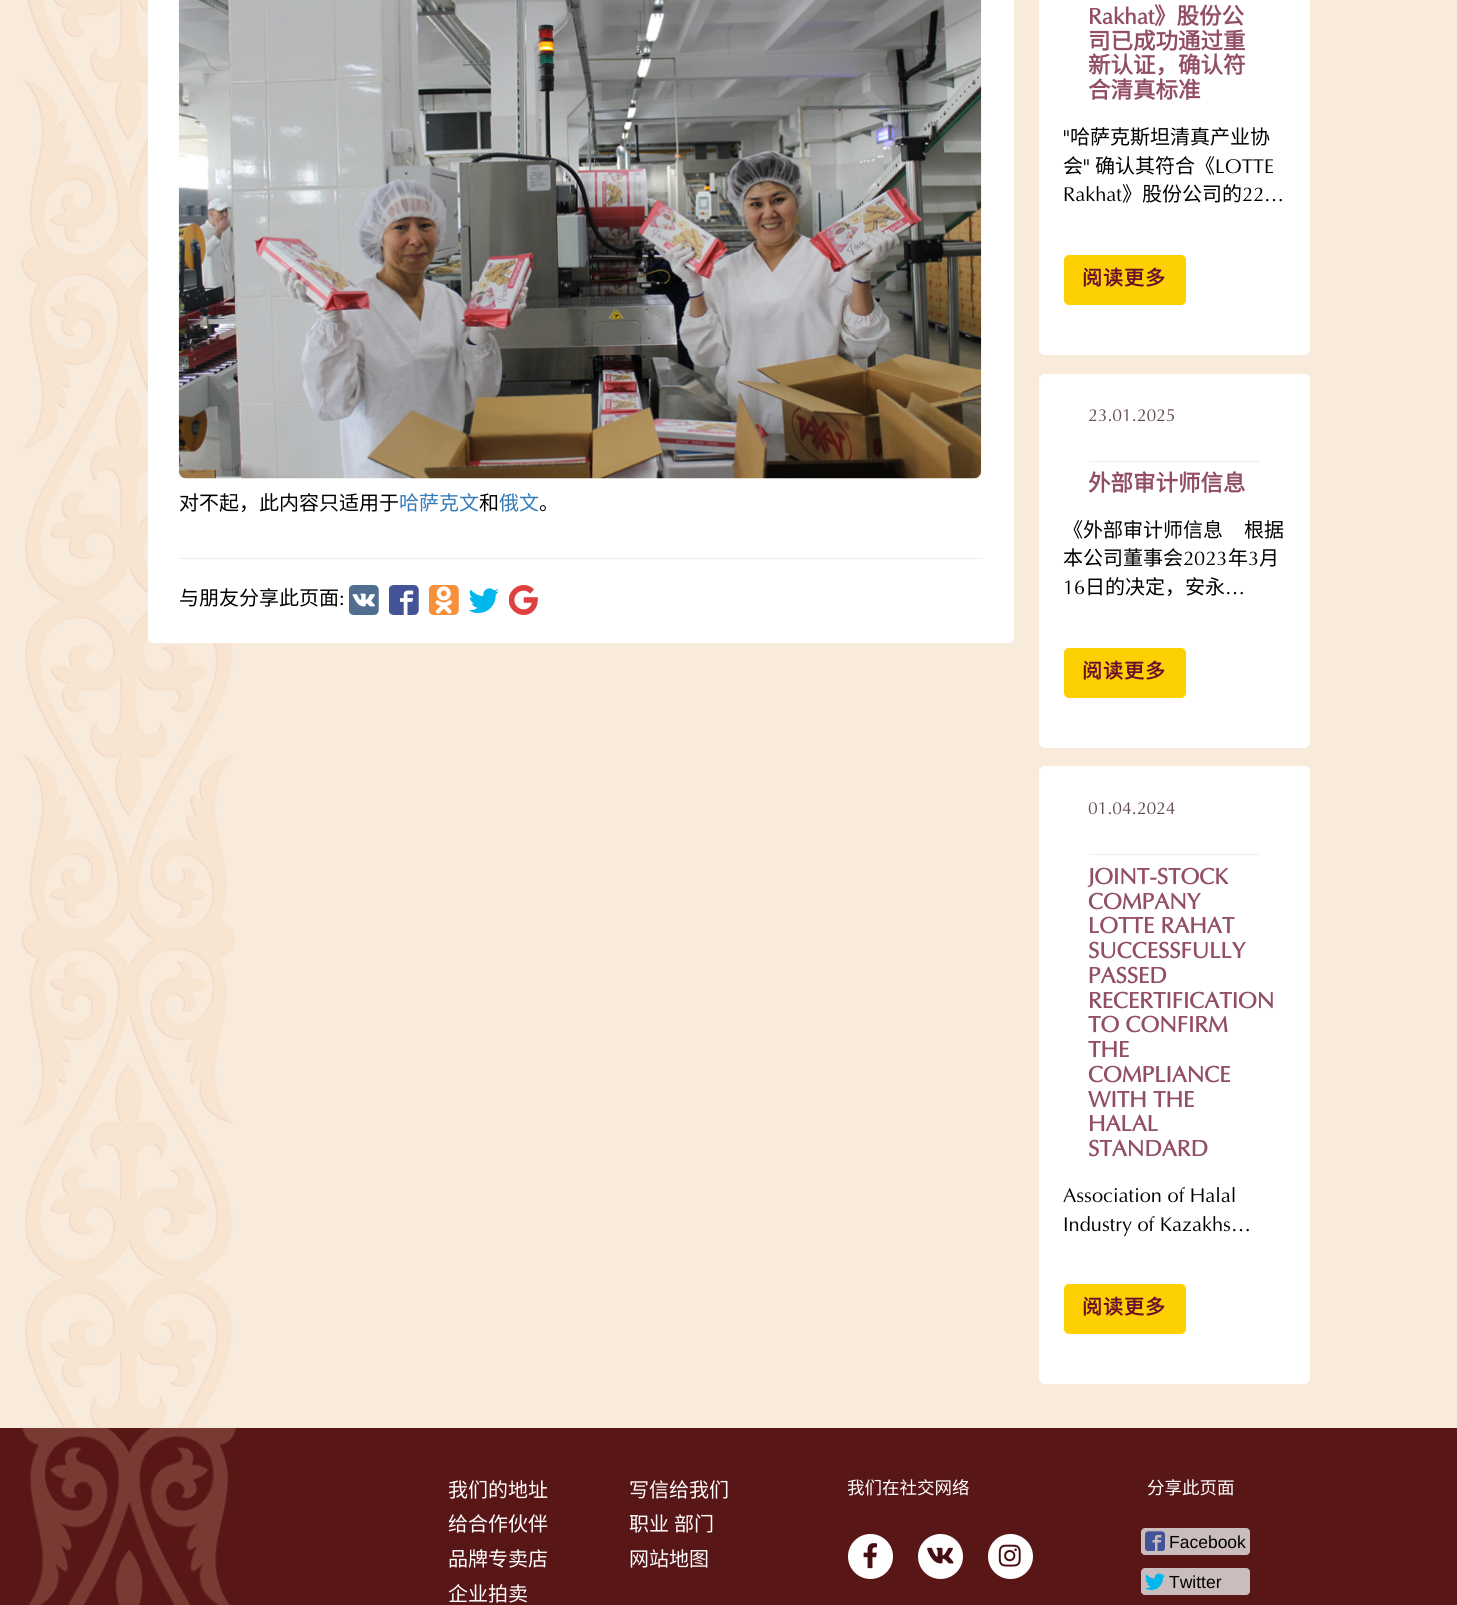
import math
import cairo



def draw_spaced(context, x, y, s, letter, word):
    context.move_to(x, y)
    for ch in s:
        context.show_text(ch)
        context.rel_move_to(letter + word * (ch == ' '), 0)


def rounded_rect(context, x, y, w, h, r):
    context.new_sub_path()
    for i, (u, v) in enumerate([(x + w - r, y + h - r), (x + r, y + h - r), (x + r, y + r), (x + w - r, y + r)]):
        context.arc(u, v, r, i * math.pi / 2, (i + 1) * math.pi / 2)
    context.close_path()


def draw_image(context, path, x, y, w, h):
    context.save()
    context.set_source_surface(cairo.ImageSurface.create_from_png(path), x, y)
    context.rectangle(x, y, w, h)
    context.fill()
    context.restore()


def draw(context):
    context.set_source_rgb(249 / 255, 235 / 255, 220 / 255)
    context.paint()
    draw_image(context, "images/1.png", 21, 0, 215, 1428)
    context.set_source_rgb(1, 1, 1)
    rounded_rect(context, 148, -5, 866, 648, 5)
    context.fill()
    draw_image(context, "images/2.png", 178, 0, 804, 479)
    context.set_source_rgb(238 / 255, 238 / 255, 238 / 255)
    context.rectangle(179, 558, 804, 1)
    context.fill()
    draw_image(context, "images/3.png", 349, 585, 30, 30)
    draw_image(context, "images/4.png", 389, 585, 30, 30)
    draw_image(context, "images/5.png", 429, 585, 30, 30)
    draw_image(context, "images/6.png", 469, 588, 30, 25)
    draw_image(context, "images/7.png", 509, 585, 29, 30)
    context.set_source_rgb(1, 1, 1)
    rounded_rect(context, 1039, -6, 271, 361, 6)
    context.fill()
    context.set_source_rgb(253 / 255, 208 / 255, 2 / 255)
    rounded_rect(context, 1064, 255, 122, 50, 5)
    context.fill()
    context.set_source_rgb(1, 1, 1)
    rounded_rect(context, 1039, 374, 271, 374, 6)
    context.fill()
    rounded_rect(context, 1039, 374, 271, 355, 6)
    context.fill()
    context.set_source_rgb(238 / 255, 238 / 255, 238 / 255)
    context.rectangle(1089, 461, 171, 1)
    context.fill()
    context.set_source_rgb(253 / 255, 208 / 255, 2 / 255)
    rounded_rect(context, 1064, 648, 122, 50, 5)
    context.fill()
    context.set_source_rgb(1, 1, 1)
    rounded_rect(context, 1039, 766, 271, 618, 6)
    context.fill()
    rounded_rect(context, 1039, 766, 271, 599, 6)
    context.fill()
    context.set_source_rgb(238 / 255, 238 / 255, 238 / 255)
    context.rectangle(1089, 854, 171, 1)
    context.fill()
    context.set_source_rgb(253 / 255, 208 / 255, 2 / 255)
    rounded_rect(context, 1064, 1284, 122, 50, 5)
    context.fill()
    context.set_source_rgb(89 / 255, 22 / 255, 23 / 255)
    context.rectangle(0, 1428, 1457, 177)
    context.fill()
    draw_image(context, "images/8.png", 21, 1427, 216, 178)
    context.set_source_rgb(1, 1, 1)
    context.arc(870.5, 1556.5, 22.5, 0, 2 * math.pi)
    context.fill()
    draw_image(context, "images/9.png", 863, 1543, 14, 26)
    context.arc(940.5, 1556.5, 22.5, 0, 2 * math.pi)
    context.fill()
    draw_image(context, "images/10.png", 927, 1547, 27, 17)
    context.arc(1010.5, 1556.5, 22.5, 0, 2 * math.pi)
    context.fill()
    draw_image(context, "images/11.png", 998, 1544, 23, 23)
    context.set_source_rgb(203 / 255, 189 / 255, 189 / 255)
    rounded_rect(context, 1141, 1528, 109, 27, 4)
    context.fill()
    draw_image(context, "images/12.png", 1145, 1531, 20, 20)
    rounded_rect(context, 1141, 1568, 109, 27, 4)
    context.fill()
    draw_image(context, "images/13.png", 1145, 1573, 20, 17)
    context.select_font_face("Noto Sans CJK SC")
    context.set_font_size(20)
    context.set_source_rgb(0, 0, 0)
    context.move_to(179, 510)
    context.show_text("对不起，此内容只适用于")
    context.set_source_rgb(51 / 255, 122 / 255, 183 / 255)
    context.move_to(399, 510)
    context.show_text("哈萨克文")
    context.set_source_rgb(0, 0, 0)
    context.move_to(479, 510)
    context.show_text("和")
    context.set_source_rgb(51 / 255, 122 / 255, 183 / 255)
    context.move_to(499, 510)
    context.show_text("俄文")
    context.set_source_rgb(0, 0, 0)
    context.move_to(539, 510)
    context.show_text("。")
    context.move_to(179, 605)
    context.show_text("与朋友分享此页面")
    context.select_font_face("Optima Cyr")
    context.move_to(339, 605)
    context.show_text(":")
    context.select_font_face("Optima Cyr", cairo.FontSlant.NORMAL, cairo.FontWeight.BOLD)
    context.set_font_size(22.5)
    context.set_source_rgb(146 / 255, 78 / 255, 100 / 255)
    context.move_to(1088, 24)
    context.show_text("Rakhat")
    context.select_font_face("Noto Sans CJK SC", cairo.FontSlant.NORMAL, cairo.FontWeight.BOLD)
    context.move_to(1154, 24)
    context.show_text("》股份公")
    context.move_to(1088, 49)
    context.show_text("司已成功通过重")
    context.move_to(1088, 73)
    context.show_text("新认证，确认符")
    context.move_to(1088, 98)
    context.show_text("合清真标准")
    context.select_font_face("Optima Cyr")
    context.set_font_size(20)
    context.set_source_rgb(0, 0, 0)
    context.move_to(1063, 144)
    context.show_text("\"")
    context.select_font_face("Noto Sans CJK SC")
    context.move_to(1070, 144)
    context.show_text("哈萨克斯坦清真产业协")
    context.move_to(1063, 173)
    context.show_text("会")
    context.select_font_face("Optima Cyr")
    context.move_to(1083, 173)
    context.show_text("\"")
    context.select_font_face("Noto Sans CJK SC")
    context.move_to(1095, 173)
    context.show_text("确认其符合《")
    context.select_font_face("Optima Cyr")
    context.move_to(1215, 173)
    context.show_text("LOTTE")
    context.move_to(1063, 201)
    context.show_text("Rakhat")
    context.select_font_face("Noto Sans CJK SC")
    context.move_to(1122, 201)
    context.show_text("》股份公司的")
    context.select_font_face("Optima Cyr")
    context.move_to(1242, 201)
    context.show_text("22")
    context.select_font_face("Liberation Serif")
    context.move_to(1264, 201)
    context.show_text("…")
    context.select_font_face("Noto Sans CJK SC", cairo.FontSlant.NORMAL, cairo.FontWeight.BOLD)
    context.set_source_rgb(107 / 255, 14 / 255, 44 / 255)
    draw_spaced(context, 1082, 285, "阅读更多", 1, 0)
    context.select_font_face("Optima Cyr")
    context.set_font_size(17.5)
    context.set_source_rgb(100 / 255, 78 / 255, 85 / 255)
    context.move_to(1088, 421)
    context.show_text("23.01.2025")
    context.select_font_face("Noto Sans CJK SC", cairo.FontSlant.NORMAL, cairo.FontWeight.BOLD)
    context.set_font_size(22.5)
    context.set_source_rgb(146 / 255, 78 / 255, 100 / 255)
    context.move_to(1088, 491)
    context.show_text("外部审计师信息")
    context.select_font_face("Noto Sans CJK SC")
    context.set_font_size(20)
    context.set_source_rgb(0, 0, 0)
    context.move_to(1063, 537)
    context.show_text("《外部审计师信息")
    context.move_to(1244, 537)
    context.show_text("根据")
    context.move_to(1063, 565)
    context.show_text("本公司董事会")
    context.select_font_face("Optima Cyr")
    context.move_to(1183, 565)
    context.show_text("2023")
    context.select_font_face("Noto Sans CJK SC")
    context.move_to(1228, 565)
    context.show_text("年")
    context.select_font_face("Optima Cyr")
    context.move_to(1248, 565)
    context.show_text("3")
    context.select_font_face("Noto Sans CJK SC")
    context.move_to(1259, 565)
    context.show_text("月")
    context.select_font_face("Optima Cyr")
    context.move_to(1063, 594)
    context.show_text("16")
    context.select_font_face("Noto Sans CJK SC")
    context.move_to(1085, 594)
    context.show_text("日的决定，安永")
    context.select_font_face("Liberation Serif")
    context.move_to(1225, 594)
    context.show_text("…")
    context.select_font_face("Noto Sans CJK SC", cairo.FontSlant.NORMAL, cairo.FontWeight.BOLD)
    context.set_source_rgb(107 / 255, 14 / 255, 44 / 255)
    draw_spaced(context, 1082, 678, "阅读更多", 1, 0)
    context.select_font_face("Optima Cyr")
    context.set_font_size(17.5)
    context.set_source_rgb(100 / 255, 78 / 255, 85 / 255)
    context.move_to(1088, 814)
    context.show_text("01.04.2024")
    context.select_font_face("Optima Cyr", cairo.FontSlant.NORMAL, cairo.FontWeight.BOLD)
    context.set_font_size(22.5)
    context.set_source_rgb(146 / 255, 78 / 255, 100 / 255)
    context.move_to(1088, 884)
    context.show_text("JOINT-STOCK")
    context.move_to(1088, 909)
    context.show_text("COMPANY")
    context.move_to(1088, 933)
    context.show_text("LOTTE RAHAT")
    context.move_to(1088, 958)
    context.show_text("SUCCESSFULLY")
    context.move_to(1088, 983)
    context.show_text("PASSED")
    context.move_to(1088, 1008)
    context.show_text("RECERTIFICATION")
    context.move_to(1088, 1032)
    context.show_text("TO CONFIRM")
    context.move_to(1088, 1057)
    context.show_text("THE")
    context.move_to(1088, 1082)
    context.show_text("COMPLIANCE")
    context.move_to(1088, 1107)
    context.show_text("WITH THE")
    context.move_to(1088, 1131)
    context.show_text("HALAL")
    context.move_to(1088, 1156)
    context.show_text("STANDARD")
    context.select_font_face("Optima Cyr")
    context.set_font_size(20)
    context.set_source_rgb(0, 0, 0)
    context.move_to(1063, 1202)
    context.show_text("Association of Halal")
    context.move_to(1063, 1231)
    context.show_text("Industry of Kazakhs")
    context.select_font_face("Liberation Serif")
    context.move_to(1231, 1231)
    context.show_text("…")
    context.select_font_face("Noto Sans CJK SC", cairo.FontSlant.NORMAL, cairo.FontWeight.BOLD)
    context.set_source_rgb(107 / 255, 14 / 255, 44 / 255)
    draw_spaced(context, 1082, 1314, "阅读更多", 1, 0)
    context.select_font_face("Noto Sans CJK SC")
    context.set_source_rgb(1, 1, 1)
    context.move_to(448, 1497)
    context.show_text("我们的地址")
    context.move_to(629, 1497)
    context.show_text("写信给我们")
    context.move_to(448, 1531)
    context.show_text("给合作伙伴")
    context.move_to(629, 1531)
    context.show_text("职业")
    context.move_to(674, 1531)
    context.show_text("部门")
    context.move_to(448, 1566)
    context.show_text("品牌专卖店")
    context.move_to(629, 1566)
    context.show_text("网站地图")
    context.move_to(448, 1601)
    context.show_text("企业拍卖")
    context.set_font_size(17.5)
    context.move_to(847, 1494)
    context.show_text("我们在社交网络")
    context.move_to(1147, 1494)
    context.show_text("分享此页面")
    context.select_font_face("Liberation Sans")
    context.set_source_rgb(0, 0, 0)
    context.move_to(1169, 1548)
    context.show_text("Facebook")
    context.move_to(1169, 1588)
    context.show_text("Twitter")


surface = cairo.ImageSurface(cairo.Format.RGB24, 1457, 1605)
context = cairo.Context(surface)
options = cairo.FontOptions()
options.set_hint_metrics(cairo.HintMetrics.OFF)
options.set_hint_style(cairo.HintStyle.NONE)
context.set_font_options(options)
context.set_miter_limit(4)
draw(context)
surface.write_to_png("out.png")
